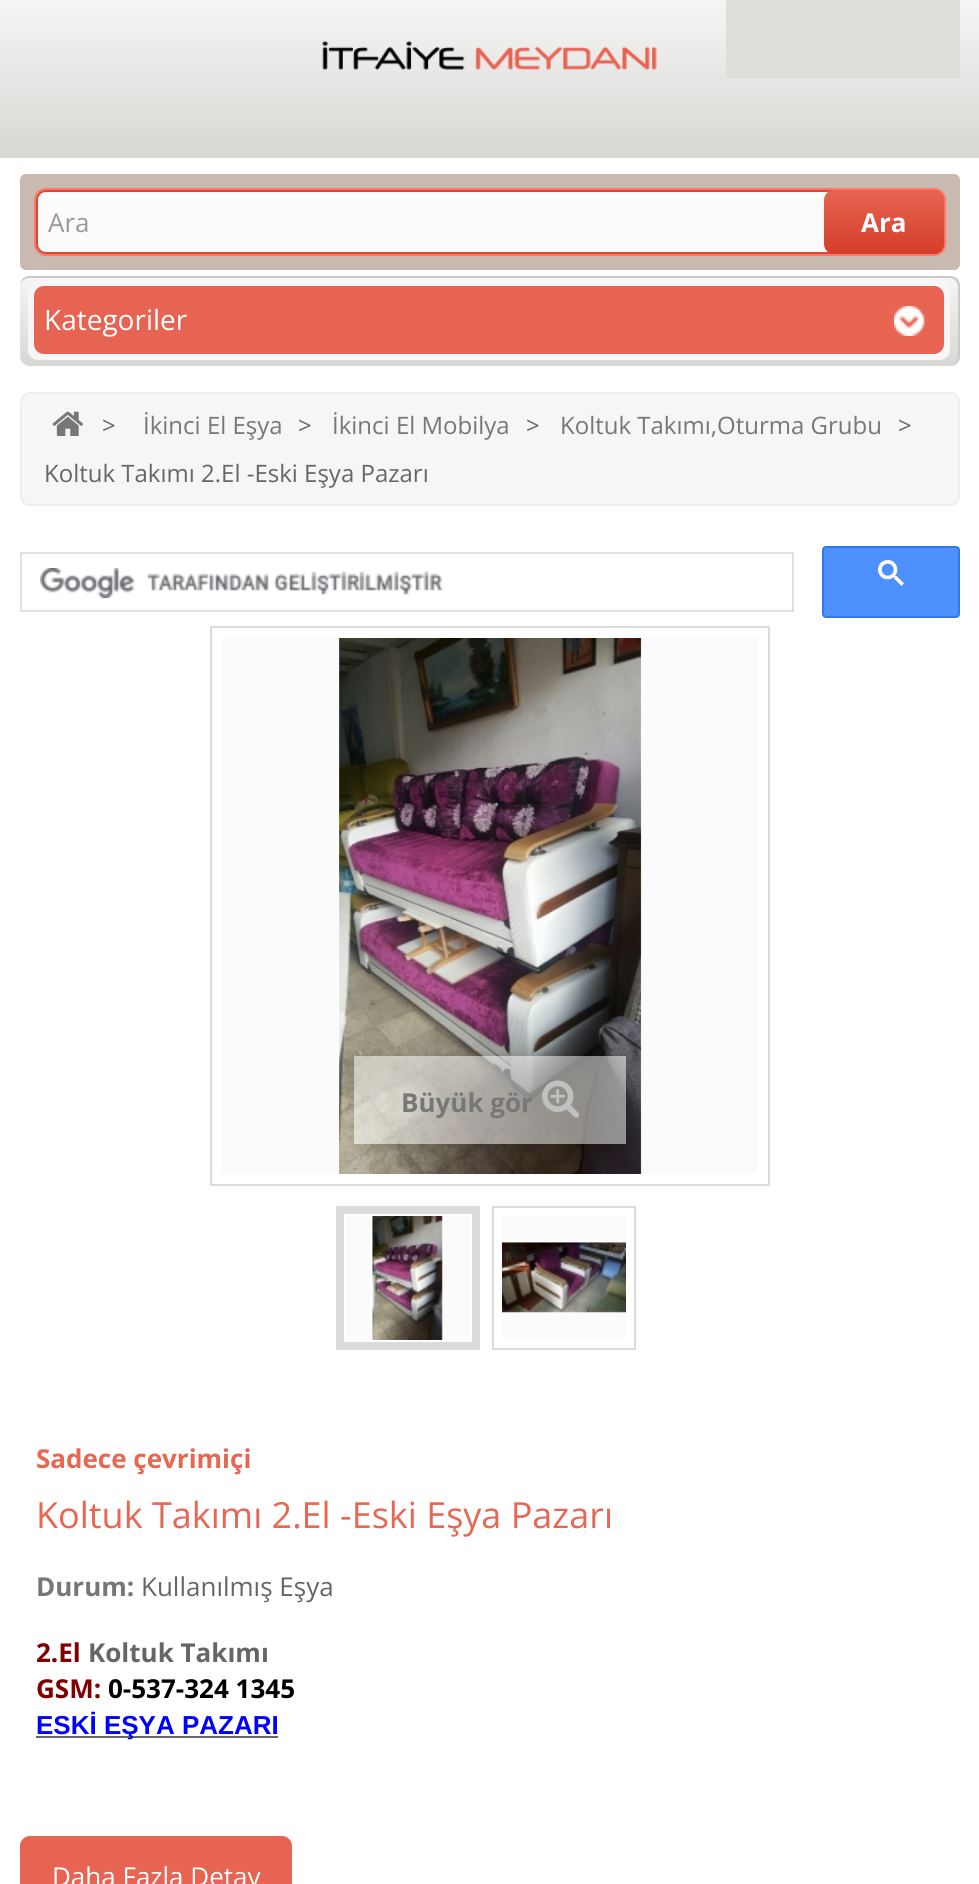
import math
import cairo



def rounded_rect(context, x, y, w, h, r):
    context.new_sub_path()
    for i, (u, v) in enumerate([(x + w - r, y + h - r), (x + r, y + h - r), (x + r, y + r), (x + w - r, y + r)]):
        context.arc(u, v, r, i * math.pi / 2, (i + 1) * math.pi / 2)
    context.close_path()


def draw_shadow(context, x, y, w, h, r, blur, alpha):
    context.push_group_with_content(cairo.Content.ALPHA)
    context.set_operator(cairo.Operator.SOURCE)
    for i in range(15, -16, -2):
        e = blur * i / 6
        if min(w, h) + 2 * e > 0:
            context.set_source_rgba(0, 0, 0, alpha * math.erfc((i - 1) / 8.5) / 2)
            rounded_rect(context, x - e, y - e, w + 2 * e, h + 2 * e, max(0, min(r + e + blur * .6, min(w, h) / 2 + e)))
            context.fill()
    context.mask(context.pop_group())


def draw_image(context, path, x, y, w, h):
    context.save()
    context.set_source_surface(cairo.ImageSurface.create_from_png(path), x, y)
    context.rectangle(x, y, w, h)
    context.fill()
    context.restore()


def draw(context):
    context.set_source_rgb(1, 1, 1)
    context.paint()
    gradient = cairo.LinearGradient(490, 0, 490, 158)
    gradient.add_color_stop_rgba(0, 245 / 255, 245 / 255, 245 / 255, 1)
    gradient.add_color_stop_rgba(1, 216 / 255, 215 / 255, 211 / 255, 1)
    context.set_source(gradient)
    context.rectangle(0, 0, 979, 158)
    context.fill()
    draw_image(context, "images/1.png", 322, 41, 335, 29)
    context.set_source_rgb(223 / 255, 222 / 255, 219 / 255)
    context.rectangle(726, 0, 234, 78)
    context.fill()
    context.set_source_rgb(201 / 255, 186 / 255, 177 / 255)
    rounded_rect(context, 20, 174, 940, 96, 6)
    context.fill()
    rounded_rect(context, 35, 189, 910, 66, 11)
    context.set_source_rgb(1, 120 / 255, 102 / 255)
    context.stroke()
    context.set_source_rgb(251 / 255, 251 / 255, 251 / 255)
    rounded_rect(context, 37, 191, 906, 62, 9)
    context.fill_preserve()
    context.set_source_rgb(218 / 255, 73 / 255, 54 / 255)
    context.stroke()
    gradient = cairo.LinearGradient(884, 190, 884, 254)
    gradient.add_color_stop_rgba(0, 231 / 255, 100 / 255, 82 / 255, 1)
    gradient.add_color_stop_rgba(1, 212 / 255, 62 / 255, 42 / 255, 1)
    context.set_source(gradient)
    rounded_rect(context, 824, 190, 120, 64, 10)
    context.fill()
    context.set_source_rgb(245 / 255, 245 / 255, 245 / 255)
    rounded_rect(context, 20, 276, 940, 90, 10)
    context.fill()
    context.save()
    rounded_rect(context, 20, 276, 940, 90, 10)
    context.clip()
    gradient = cairo.LinearGradient(489, 278, 489, 366)
    gradient.add_color_stop_rgba(0, 245 / 255, 245 / 255, 245 / 255, 1)
    gradient.add_color_stop_rgba(1, 216 / 255, 215 / 255, 211 / 255, 1)
    context.set_source(gradient)
    context.new_path()
    context.move_to(20, 278)
    context.line_to(960, 278)
    context.line_to(960, 356)
    context.curve_to(960, 361.5, 955.5, 366, 950, 366)
    context.line_to(30, 366)
    context.curve_to(24.5, 366, 20, 361.5, 20, 356)
    context.close_path()
    context.fill()
    context.restore()
    context.set_source_rgb(203 / 255, 202 / 255, 202 / 255)
    context.set_fill_rule(cairo.FillRule.EVEN_ODD)
    context.new_path()
    context.move_to(30, 276)
    context.line_to(950, 276)
    context.curve_to(956, 276, 960, 280, 960, 286)
    context.line_to(960, 356)
    context.curve_to(960, 362, 956, 366, 950, 366)
    context.line_to(30, 366)
    context.curve_to(24, 366, 20, 362, 20, 356)
    context.line_to(20, 286)
    context.curve_to(20, 280, 24, 276, 30, 276)
    context.close_path()
    context.move_to(30, 278)
    context.line_to(950, 278)
    context.curve_to(954, 278, 958, 282, 958, 286)
    context.line_to(958, 356)
    context.curve_to(958, 362, 954, 366, 950, 366)
    context.line_to(30, 366)
    context.curve_to(24, 366, 20, 362, 20, 356)
    context.line_to(20, 286)
    context.curve_to(20, 282, 24, 278, 30, 278)
    context.close_path()
    context.fill()
    context.set_source_rgb(246 / 255, 246 / 255, 246 / 255)
    rounded_rect(context, 28, 280, 922, 80, 10)
    context.fill()
    context.set_source_rgb(231 / 255, 100 / 255, 83 / 255)
    rounded_rect(context, 34, 286, 910, 68, 10)
    context.fill()
    draw_image(context, "images/2.png", 894, 306, 31, 30)
    context.set_source_rgb(246 / 255, 246 / 255, 246 / 255)
    rounded_rect(context, 21, 393, 938, 112, 9)
    context.fill_preserve()
    context.set_source_rgb(238 / 255, 238 / 255, 238 / 255)
    context.stroke()
    draw_image(context, "images/3.png", 52, 411, 31, 25)
    context.rectangle(21, 553, 772, 58)
    context.set_source_rgb(223 / 255, 225 / 255, 229 / 255)
    context.stroke()
    draw_image(context, "images/4.png", 40, 568, 403, 30)
    context.set_source_rgb(77 / 255, 144 / 255, 254 / 255)
    rounded_rect(context, 823, 547, 136, 70, 3)
    context.fill_preserve()
    context.set_source_rgb(48 / 255, 121 / 255, 237 / 255)
    context.stroke()
    draw_image(context, "images/5.png", 878, 560, 26, 26)
    context.rectangle(211, 627, 558, 558)
    context.set_source_rgb(219 / 255, 219 / 255, 219 / 255)
    context.stroke()
    context.set_source_rgb(251 / 255, 251 / 255, 251 / 255)
    context.rectangle(222, 638, 536, 536)
    context.fill()
    draw_image(context, "images/6.png", 338, 638, 304, 536)
    context.save()
    context.new_path()
    context.move_to(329, 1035)
    context.line_to(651, 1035)
    context.line_to(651, 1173)
    context.line_to(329, 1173)
    context.close_path()
    context.move_to(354, 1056)
    context.line_to(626, 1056)
    context.line_to(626, 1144)
    context.line_to(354, 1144)
    context.close_path()
    context.clip()
    context.set_source_rgb(0, 0, 0)
    draw_shadow(context, 354, 1060, 272, 88, 0, 8, 0.16)
    context.restore()
    context.set_source_rgba(1, 1, 1, 0.5)
    context.rectangle(354, 1056, 272, 88)
    context.fill()
    draw_image(context, "images/7.png", 542, 1080, 38, 38)
    context.rectangle(337, 1207, 142, 142)
    context.set_source_rgb(219 / 255, 219 / 255, 219 / 255)
    context.stroke()
    context.set_source_rgb(251 / 255, 251 / 255, 251 / 255)
    context.rectangle(346, 1216, 124, 124)
    context.fill()
    context.rectangle(341, 1211, 134, 134)
    context.set_source_rgb(219 / 255, 219 / 255, 219 / 255)
    context.set_line_width(6)
    context.stroke()
    draw_image(context, "images/8.png", 370, 1216, 73, 124)
    context.rectangle(493, 1207, 142, 142)
    context.set_line_width(2)
    context.stroke()
    context.set_source_rgb(251 / 255, 251 / 255, 251 / 255)
    context.rectangle(502, 1216, 124, 124)
    context.fill()
    draw_image(context, "images/9.png", 502, 1241, 124, 72)
    context.set_source_rgb(102 / 255, 102 / 255, 102 / 255)
    context.rectangle(36, 1736, 242, 2)
    context.fill()
    context.set_source_rgb(231 / 255, 100 / 255, 83 / 255)
    context.new_path()
    context.move_to(30, 1836)
    context.line_to(282, 1836)
    context.curve_to(287.5, 1836, 292, 1840.5, 292, 1846)
    context.line_to(292, 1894)
    context.line_to(20, 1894)
    context.line_to(20, 1846)
    context.curve_to(20, 1840.5, 24.5, 1836, 30, 1836)
    context.close_path()
    context.fill()
    context.select_font_face("Open Sans")
    context.set_font_size(26)
    context.set_source_rgb(153 / 255, 153 / 255, 153 / 255)
    context.move_to(48, 232)
    context.show_text("Ara")
    context.select_font_face("Open Sans", cairo.FontSlant.NORMAL, cairo.FontWeight.BOLD)
    context.set_source_rgb(1, 1, 1)
    context.move_to(861, 232)
    context.show_text("Ara")
    context.select_font_face("Open Sans")
    context.set_font_size(28)
    context.move_to(44, 330)
    context.show_text("Kategoriler")
    context.set_font_size(24)
    context.set_source_rgb(119 / 255, 119 / 255, 119 / 255)
    context.move_to(143, 434)
    context.show_text("İkinci El Eşya")
    context.set_source_rgb(102 / 255, 102 / 255, 102 / 255)
    context.move_to(298, 434)
    context.show_text(">")
    context.set_source_rgb(119 / 255, 119 / 255, 119 / 255)
    context.move_to(332, 434)
    context.show_text("İkinci El Mobilya")
    context.set_source_rgb(102 / 255, 102 / 255, 102 / 255)
    context.move_to(526, 434)
    context.show_text(">")
    context.set_source_rgb(119 / 255, 119 / 255, 119 / 255)
    context.move_to(560, 434)
    context.show_text("Koltuk Takımı,Oturma Grubu")
    context.set_source_rgb(102 / 255, 102 / 255, 102 / 255)
    context.move_to(898, 434)
    context.show_text(">")
    context.move_to(44, 482)
    context.show_text("Koltuk Takımı 2.El -Eski Eşya Pazarı")
    context.move_to(102, 434)
    context.show_text(">")
    context.select_font_face("Open Sans", cairo.FontSlant.NORMAL, cairo.FontWeight.BOLD)
    context.set_font_size(26)
    context.set_source_rgb(119 / 255, 119 / 255, 119 / 255)
    context.move_to(401, 1112)
    context.show_text("Büyük gör")
    context.set_source_rgb(231 / 255, 103 / 255, 83 / 255)
    context.move_to(36, 1468)
    context.show_text("Sadece çevrimiçi")
    context.select_font_face("Open Sans")
    context.set_font_size(36)
    context.move_to(36, 1528)
    context.show_text("Koltuk Takımı 2.El -Eski Eşya Pazarı")
    context.select_font_face("Open Sans", cairo.FontSlant.NORMAL, cairo.FontWeight.BOLD)
    context.set_font_size(26)
    context.set_source_rgb(119 / 255, 119 / 255, 119 / 255)
    context.move_to(36, 1596)
    context.show_text("Durum:")
    context.select_font_face("Open Sans")
    context.set_source_rgb(102 / 255, 102 / 255, 102 / 255)
    context.move_to(141, 1596)
    context.show_text("Kullanılmış Eşya")
    context.select_font_face("Open Sans", cairo.FontSlant.NORMAL, cairo.FontWeight.BOLD)
    context.set_source_rgb(128 / 255, 0, 0)
    context.move_to(36, 1662)
    context.show_text("2.El")
    context.set_source_rgb(102 / 255, 102 / 255, 102 / 255)
    context.move_to(88, 1662)
    context.show_text("Koltuk Takımı")
    context.set_source_rgb(128 / 255, 0, 0)
    context.move_to(36, 1698)
    context.show_text("GSM:")
    context.set_source_rgb(0, 0, 0)
    context.move_to(108, 1698)
    context.show_text("0-537-324 1345")
    context.select_font_face("Liberation Sans", cairo.FontSlant.NORMAL, cairo.FontWeight.BOLD)
    context.set_source_rgb(0, 0, 1)
    context.move_to(36, 1734)
    context.show_text("ESKİ EŞYA PAZARI")
    context.select_font_face("Open Sans")
    context.set_source_rgb(1, 1, 1)
    context.move_to(52, 1886)
    context.show_text("Daha Fazla Detay")


surface = cairo.ImageSurface(cairo.Format.RGB24, 979, 1884)
context = cairo.Context(surface)
options = cairo.FontOptions()
options.set_hint_metrics(cairo.HintMetrics.OFF)
options.set_hint_style(cairo.HintStyle.NONE)
context.set_font_options(options)
context.set_miter_limit(4)
draw(context)
surface.write_to_png("out.png")
